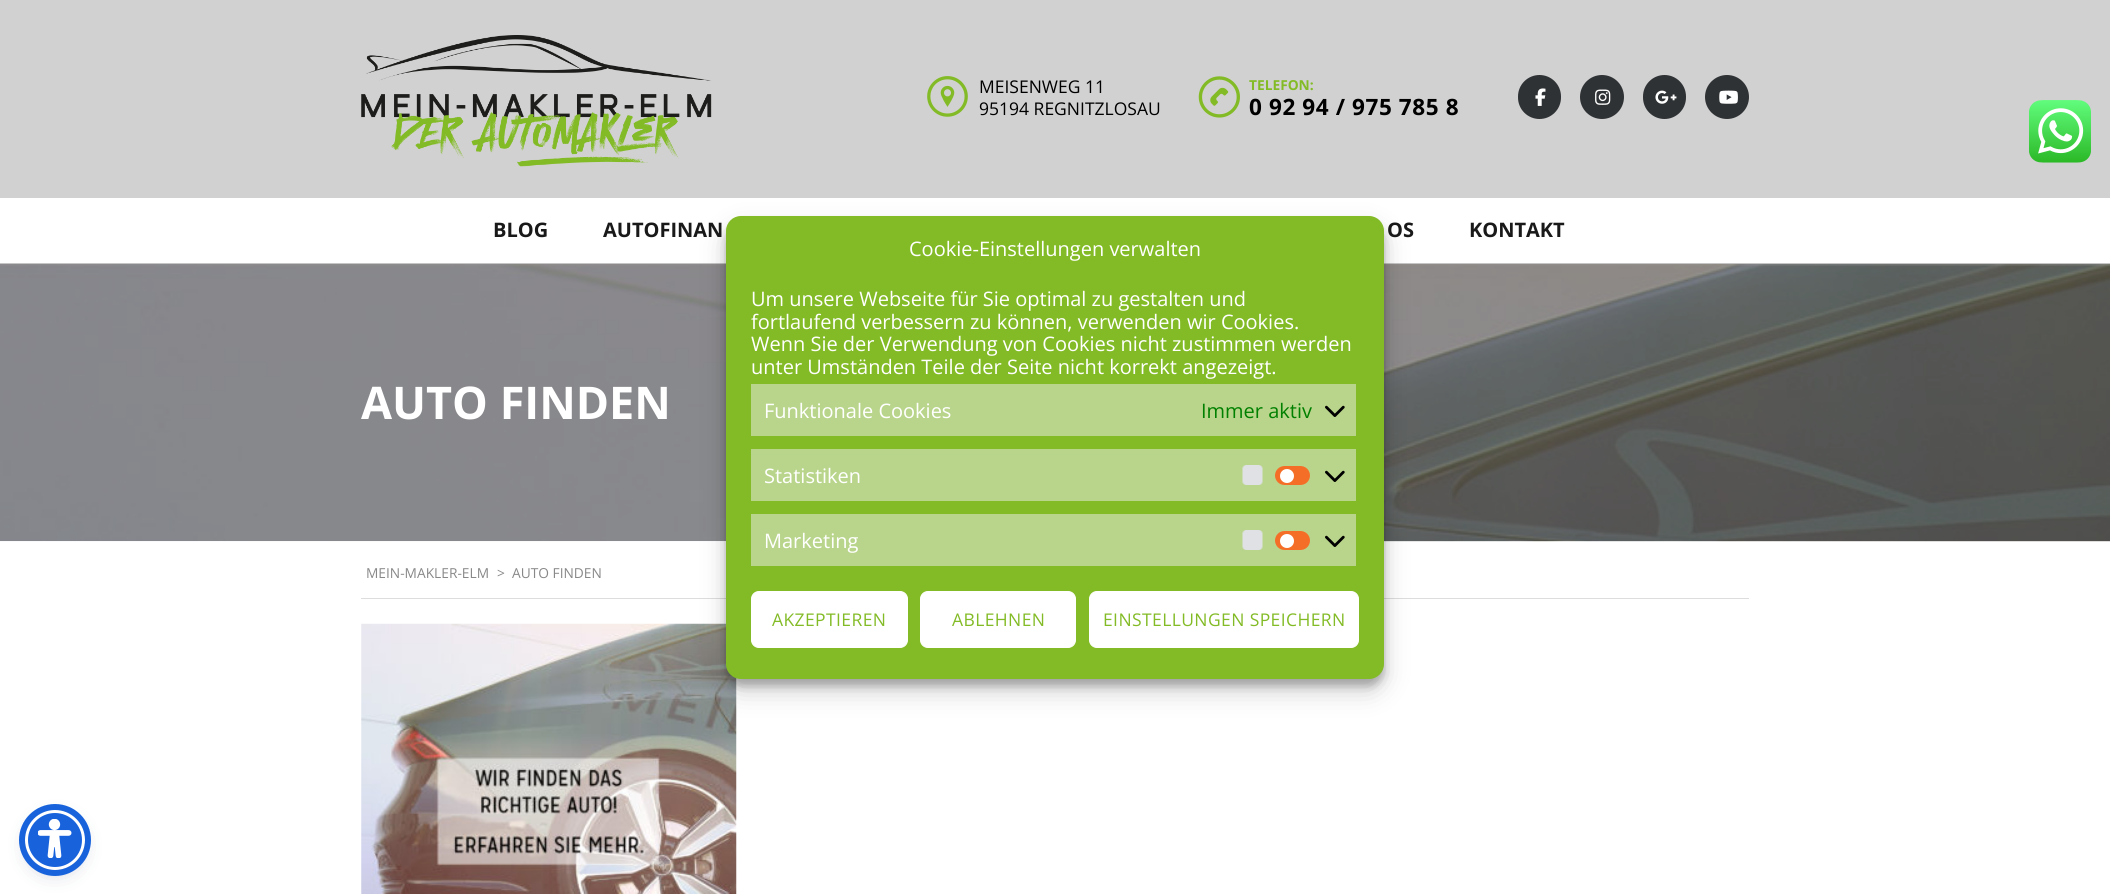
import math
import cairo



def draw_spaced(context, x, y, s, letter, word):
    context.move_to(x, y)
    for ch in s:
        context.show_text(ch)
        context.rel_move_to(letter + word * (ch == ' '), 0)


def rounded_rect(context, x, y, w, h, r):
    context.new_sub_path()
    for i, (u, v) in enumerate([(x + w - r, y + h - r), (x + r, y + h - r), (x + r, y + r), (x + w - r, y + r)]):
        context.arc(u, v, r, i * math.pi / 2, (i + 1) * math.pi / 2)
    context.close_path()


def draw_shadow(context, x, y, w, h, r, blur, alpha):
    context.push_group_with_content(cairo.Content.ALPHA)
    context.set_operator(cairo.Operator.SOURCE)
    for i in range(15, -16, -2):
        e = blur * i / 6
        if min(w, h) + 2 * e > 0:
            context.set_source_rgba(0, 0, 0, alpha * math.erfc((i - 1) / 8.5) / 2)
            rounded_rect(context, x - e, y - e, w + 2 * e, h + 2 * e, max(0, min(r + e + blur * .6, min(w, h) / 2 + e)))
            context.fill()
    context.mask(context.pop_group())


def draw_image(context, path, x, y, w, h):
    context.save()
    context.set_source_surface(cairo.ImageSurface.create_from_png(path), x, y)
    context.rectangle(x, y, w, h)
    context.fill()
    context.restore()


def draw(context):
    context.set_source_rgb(1, 1, 1)
    context.paint()
    context.set_source_rgb(209 / 255, 209 / 255, 209 / 255)
    context.rectangle(0, 0, 2110, 198)
    context.fill()
    draw_image(context, "images/1.png", 361, 35, 351, 132)
    draw_image(context, "images/2.png", 927, 76, 41, 41)
    draw_image(context, "images/3.png", 1198, 76, 42, 42)
    context.set_source_rgb(47 / 255, 50 / 255, 52 / 255)
    rounded_rect(context, 1518, 75, 43, 44, 21.5)
    context.fill()
    draw_image(context, "images/4.png", 1535, 88, 11, 18)
    context.arc(1602, 97, 22, 0, 2 * math.pi)
    context.fill()
    draw_image(context, "images/5.png", 1595, 89, 16, 16)
    rounded_rect(context, 1643, 75, 43, 44, 21.5)
    context.fill()
    draw_image(context, "images/6.png", 1655, 90, 22, 14)
    context.arc(1727, 97, 22, 0, 2 * math.pi)
    context.fill()
    draw_image(context, "images/7.png", 1719, 90, 19, 14)
    context.set_source_rgb(197 / 255, 197 / 255, 197 / 255)
    context.rectangle(0, 263, 2110, 1)
    context.fill()
    draw_image(context, "images/8.png", 0, 264, 2110, 278)
    context.set_source_rgb(221 / 255, 221 / 255, 221 / 255)
    context.rectangle(361, 598, 1388, 1)
    context.fill()
    draw_image(context, "images/9.png", 361, 623, 376, 271)
    draw_image(context, "images/10.png", 2029, 100, 62, 63)
    context.set_source_rgb(0, 0, 0)
    draw_shadow(context, 726, 224, 658, 462, 15, 4, 0.23)
    draw_shadow(context, 726, 229, 658, 462, 15, 12.5, 0.19)
    context.set_source_rgb(131 / 255, 187 / 255, 38 / 255)
    rounded_rect(context, 726, 216, 658, 463, 15)
    context.fill()
    context.set_source_rgb(185 / 255, 213 / 255, 139 / 255)
    context.rectangle(751, 384, 605, 52)
    context.fill()
    draw_image(context, "images/11.png", 1325, 405, 20, 12)
    context.rectangle(751, 449, 605, 52)
    context.fill()
    draw_image(context, "images/12.png", 1242, 465, 21, 20)
    context.set_source_rgb(245 / 255, 110 / 255, 40 / 255)
    rounded_rect(context, 1275, 466, 35, 19, 9.5)
    context.fill()
    context.set_source_rgb(1, 1, 1)
    context.arc(1287, 476, 7, 0, 2 * math.pi)
    context.fill()
    draw_image(context, "images/11.png", 1325, 470, 20, 12)
    context.set_source_rgb(185 / 255, 213 / 255, 139 / 255)
    context.rectangle(751, 514, 605, 52)
    context.fill()
    draw_image(context, "images/12.png", 1242, 530, 21, 20)
    context.set_source_rgb(245 / 255, 110 / 255, 40 / 255)
    rounded_rect(context, 1275, 531, 35, 19, 9.5)
    context.fill()
    context.set_source_rgb(1, 1, 1)
    context.arc(1287, 541, 7, 0, 2 * math.pi)
    context.fill()
    draw_image(context, "images/11.png", 1325, 535, 20, 12)
    rounded_rect(context, 751.5, 591.5, 156, 56, 7.5)
    context.fill_preserve()
    context.set_line_width(1)
    context.stroke()
    rounded_rect(context, 920.5, 591.5, 155, 56, 7.5)
    context.fill_preserve()
    context.stroke()
    rounded_rect(context, 1089.5, 591.5, 269, 56, 7.5)
    context.fill_preserve()
    context.stroke()
    context.set_source_rgb(93 / 255, 100 / 255, 148 / 255)
    draw_shadow(context, 25, 813, 60, 60, 30, 2.5, 0.2)
    context.set_source_rgb(37 / 255, 44 / 255, 97 / 255)
    draw_shadow(context, 25, 816, 60, 60, 30, 9.5, 0.15)
    context.set_source_rgb(24 / 255, 99 / 255, 220 / 255)
    context.arc(55, 840, 28.5, 0, 2 * math.pi)
    context.fill_preserve()
    context.set_source_rgb(1, 1, 1)
    context.set_line_width(3)
    context.stroke()
    context.arc(55, 840, 33, 0, 2 * math.pi)
    context.set_source_rgb(24 / 255, 99 / 255, 220 / 255)
    context.set_line_width(6)
    context.stroke()
    draw_image(context, "images/13.png", 38, 819, 34, 39)
    context.select_font_face("Open Sans")
    context.set_font_size(17.5)
    context.set_source_rgb(0, 0, 0)
    context.move_to(979, 93)
    context.show_text("MEISENWEG 11")
    context.move_to(979, 115)
    context.show_text("95194 REGNITZLOSAU")
    context.select_font_face("Open Sans", cairo.FontSlant.NORMAL, cairo.FontWeight.BOLD)
    context.set_font_size(13.75)
    context.set_source_rgb(131 / 255, 187 / 255, 38 / 255)
    context.move_to(1249, 90)
    context.show_text("TELEFON:")
    context.set_font_size(22.5)
    context.set_source_rgb(0, 0, 0)
    draw_spaced(context, 1249, 115, "0 92 94 / 975 785 8", 0.6, 0)
    context.set_font_size(20)
    context.set_source_rgb(25 / 255, 25 / 255, 25 / 255)
    context.move_to(493, 237)
    context.show_text("BLOG")
    context.move_to(603, 237)
    context.show_text("AUTOFINAN")
    context.move_to(1387, 237)
    context.show_text("OS")
    context.move_to(1469, 237)
    context.show_text("KONTAKT")
    context.set_font_size(45)
    context.set_source_rgb(1, 1, 1)
    context.move_to(361, 419)
    context.show_text("AUTO FINDEN")
    context.select_font_face("Open Sans")
    context.set_font_size(13.75)
    context.set_source_rgb(136 / 255, 136 / 255, 136 / 255)
    context.move_to(366, 578)
    context.show_text("MEIN-MAKLER-ELM")
    context.move_to(497, 578)
    context.show_text(">")
    context.move_to(512, 578)
    context.show_text("AUTO FINDEN")
    context.set_font_size(20)
    context.set_source_rgb(1, 1, 1)
    context.move_to(909, 256)
    context.show_text("Cookie-Einstellungen verwalten")
    context.move_to(751, 306)
    context.show_text("Um unsere Webseite für Sie optimal zu gestalten und")
    context.move_to(751, 329)
    context.show_text("fortlaufend verbessern zu können, verwenden wir Cookies.")
    context.move_to(751, 351)
    context.show_text("Wenn Sie der Verwendung von Cookies nicht zustimmen werden")
    context.move_to(751, 374)
    context.show_text("unter Umständen Teile der Seite nicht korrekt angezeigt.")
    context.move_to(764, 418)
    context.show_text("Funktionale Cookies")
    context.set_source_rgb(0, 128 / 255, 0)
    context.move_to(1201, 418)
    context.show_text("Immer aktiv")
    context.set_source_rgb(1, 1, 1)
    context.move_to(764, 483)
    context.show_text("Statistiken")
    context.move_to(764, 548)
    context.show_text("Marketing")
    context.set_font_size(17.5)
    context.set_source_rgb(131 / 255, 187 / 255, 38 / 255)
    draw_spaced(context, 772, 626, "AKZEPTIEREN", 0.4, 0)
    draw_spaced(context, 952, 626, "ABLEHNEN", 0.4, 0)
    draw_spaced(context, 1103, 626, "EINSTELLUNGEN SPEICHERN", 0.4, 0)


surface = cairo.ImageSurface(cairo.Format.RGB24, 2110, 894)
context = cairo.Context(surface)
options = cairo.FontOptions()
options.set_hint_metrics(cairo.HintMetrics.OFF)
options.set_hint_style(cairo.HintStyle.NONE)
context.set_font_options(options)
context.set_miter_limit(4)
draw(context)
surface.write_to_png("out.png")
